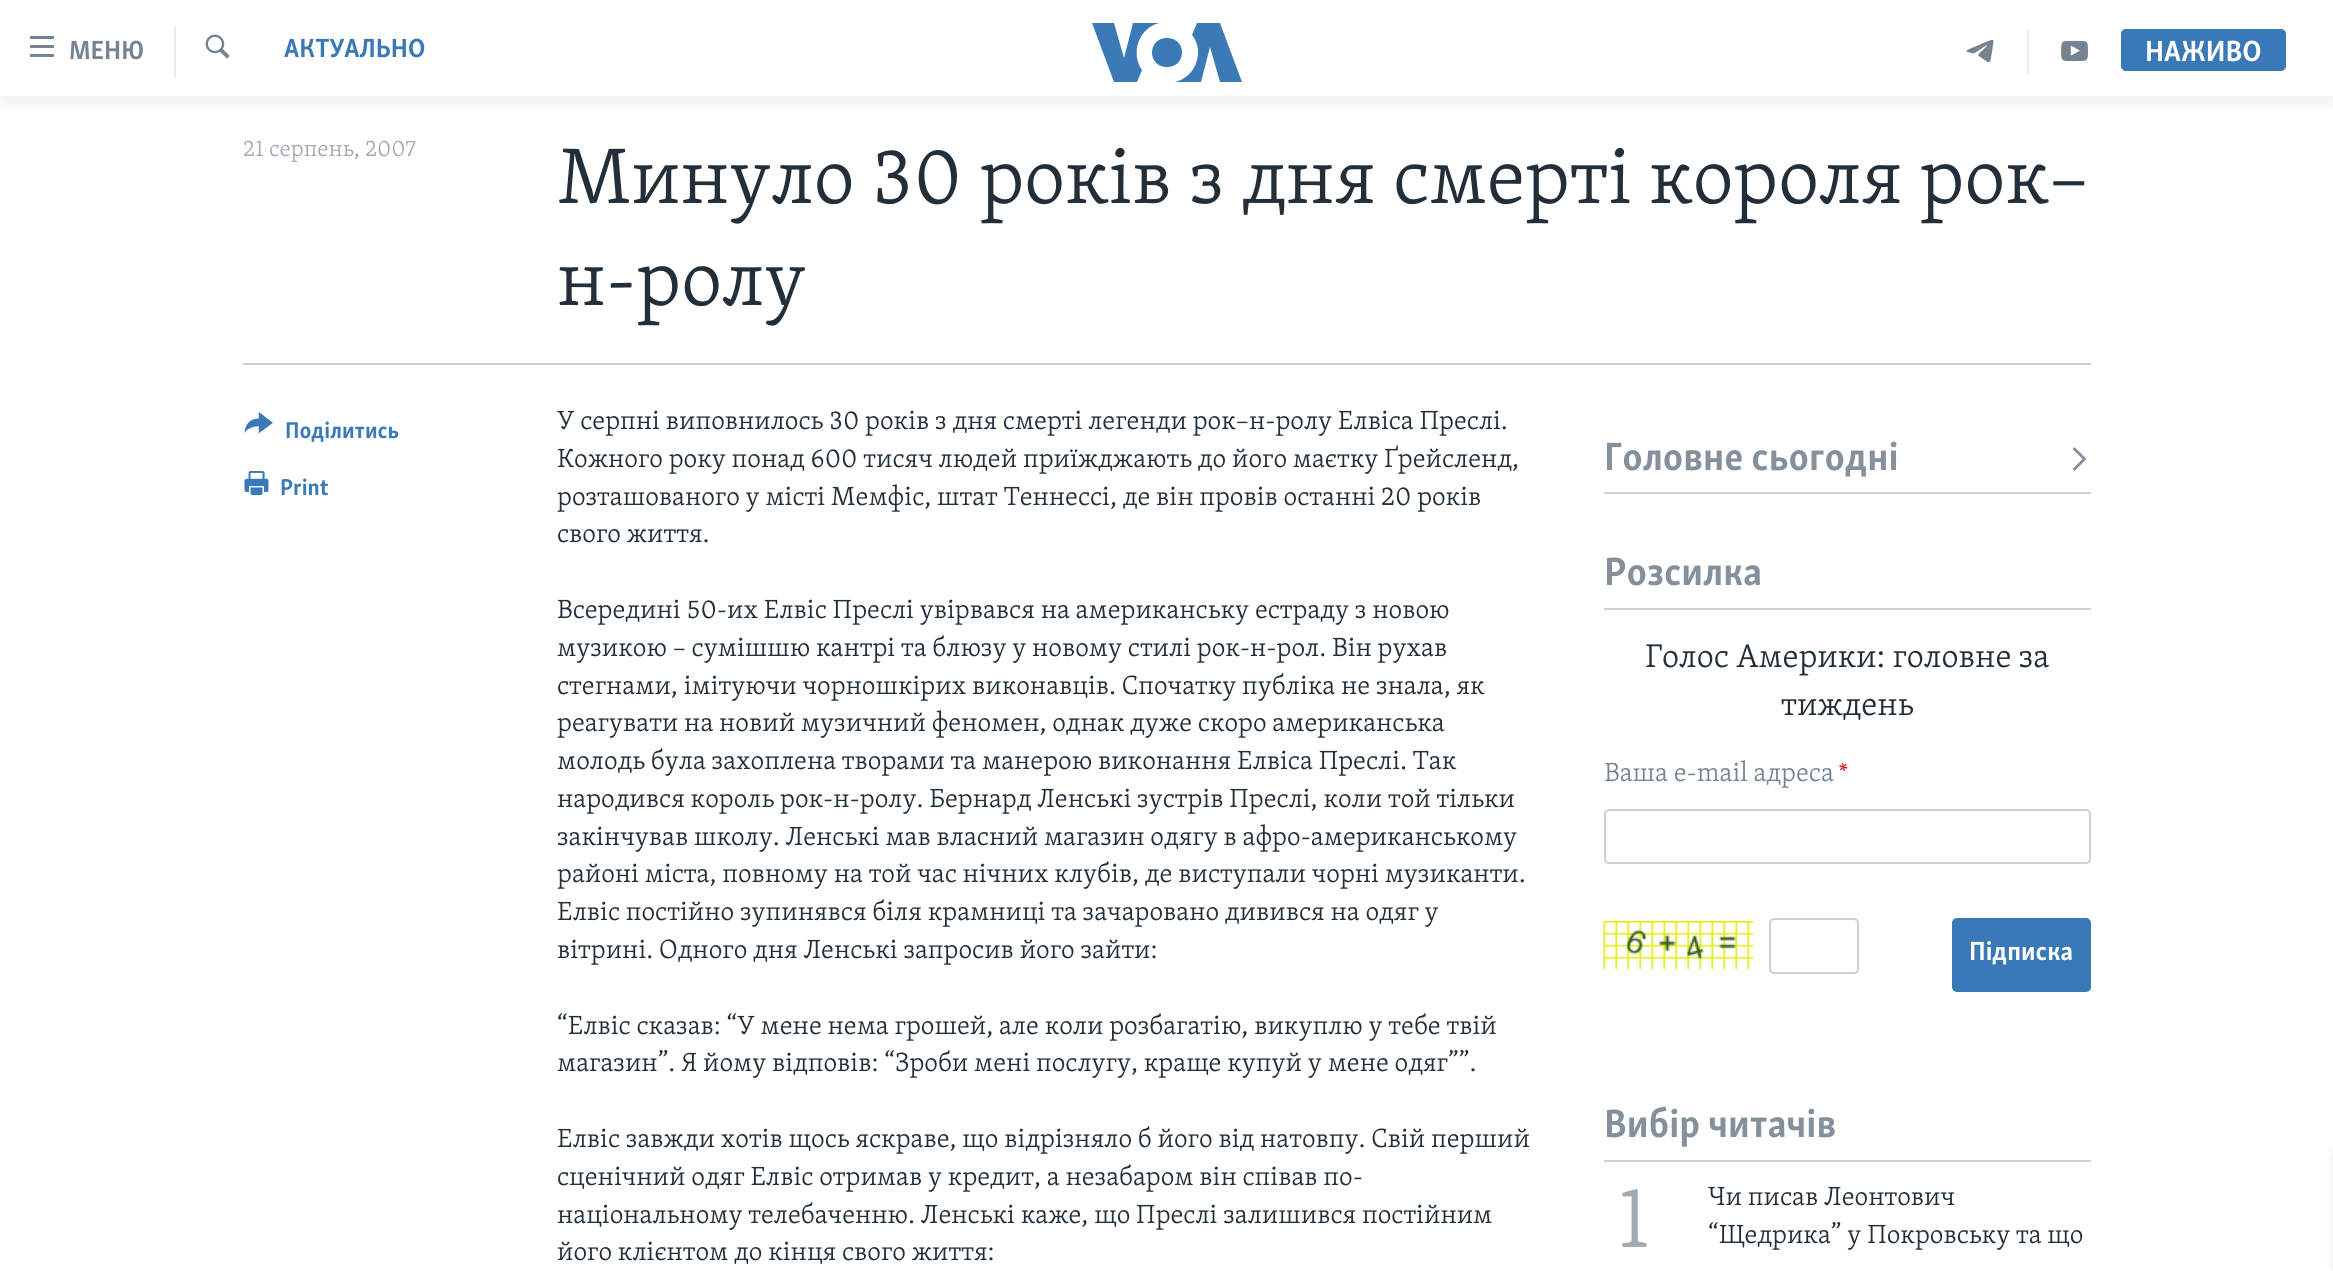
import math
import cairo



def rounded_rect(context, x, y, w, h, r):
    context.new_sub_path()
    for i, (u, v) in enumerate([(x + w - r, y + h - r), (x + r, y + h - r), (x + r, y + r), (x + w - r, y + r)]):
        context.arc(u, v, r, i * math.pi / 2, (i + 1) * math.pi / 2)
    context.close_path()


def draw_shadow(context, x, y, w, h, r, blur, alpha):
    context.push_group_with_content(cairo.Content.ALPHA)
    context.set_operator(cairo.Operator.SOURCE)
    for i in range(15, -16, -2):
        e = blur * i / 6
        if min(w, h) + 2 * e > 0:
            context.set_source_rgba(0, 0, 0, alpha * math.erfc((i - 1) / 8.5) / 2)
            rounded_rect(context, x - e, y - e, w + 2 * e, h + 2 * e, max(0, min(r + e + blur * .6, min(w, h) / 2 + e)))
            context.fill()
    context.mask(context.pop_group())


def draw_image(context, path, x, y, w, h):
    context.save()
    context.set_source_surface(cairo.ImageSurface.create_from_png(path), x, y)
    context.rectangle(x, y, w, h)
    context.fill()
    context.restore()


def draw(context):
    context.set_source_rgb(1, 1, 1)
    context.paint()
    context.save()
    context.rectangle(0, 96, 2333, 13)
    context.clip()
    context.set_source_rgb(0, 0, 0)
    draw_shadow(context, 0, 0, 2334, 96, 0, 15, 0.1)
    context.restore()
    draw_image(context, "images/1.png", 30, 36, 24, 21)
    context.set_source_rgb(235 / 255, 235 / 255, 235 / 255)
    context.rectangle(174, 26, 2, 52)
    context.fill()
    draw_image(context, "images/2.png", 205, 34, 25, 25)
    context.set_source_rgb(59 / 255, 121 / 255, 183 / 255)
    context.new_path()
    context.move_to(1142, 70)
    context.line_to(1137, 82)
    context.line_to(1114, 82)
    context.line_to(1092, 23)
    context.line_to(1114, 23)
    context.line_to(1124, 58)
    context.line_to(1133, 23)
    context.line_to(1159, 23)
    context.curve_to(1139, 28, 1130, 53, 1142, 70)
    context.close_path()
    context.move_to(1167, 38)
    context.curve_to(1147, 38, 1147, 67, 1167, 67)
    context.curve_to(1187, 67, 1187, 38, 1167, 38)
    context.close_path()
    context.move_to(1198, 52)
    context.curve_to(1198, 67, 1188, 79, 1175, 82)
    context.line_to(1201, 82)
    context.line_to(1210, 47)
    context.line_to(1220, 82)
    context.line_to(1242, 82)
    context.line_to(1220, 23)
    context.line_to(1197, 23)
    context.line_to(1192, 35)
    context.curve_to(1196, 40, 1198, 46, 1198, 52)
    context.close_path()
    context.fill()
    context.set_source_rgb(235 / 255, 235 / 255, 235 / 255)
    context.rectangle(2027, 29, 2, 46)
    context.fill()
    draw_image(context, "images/3.png", 1966, 39, 28, 24)
    draw_image(context, "images/4.png", 2061, 40, 27, 22)
    context.set_source_rgb(58 / 255, 121 / 255, 183 / 255)
    rounded_rect(context, 2121, 29, 165, 42, 5)
    context.fill()
    context.set_source_rgb(203 / 255, 209 / 255, 214 / 255)
    context.rectangle(243, 363, 1848, 2)
    context.fill()
    draw_image(context, "images/5.png", 244, 412, 29, 22)
    draw_image(context, "images/6.png", 244, 471, 25, 24)
    context.rectangle(1604, 492, 487, 2)
    context.fill()
    context.set_source_rgb(132 / 255, 145 / 255, 157 / 255)
    context.new_path()
    context.move_to(2074.5, 471)
    context.line_to(2086.5, 459)
    context.line_to(2074.5, 447)
    context.line_to(2072.5, 449)
    context.line_to(2082.5, 459)
    context.line_to(2072.5, 469)
    context.close_path()
    context.fill()
    context.set_source_rgb(203 / 255, 209 / 255, 214 / 255)
    context.rectangle(1604, 608, 487, 2)
    context.fill()
    rounded_rect(context, 1605, 810, 485, 53, 4)
    context.stroke()
    draw_image(context, "images/7.png", 1603, 921, 151, 48)
    rounded_rect(context, 1770, 919, 88, 54, 4)
    context.stroke()
    context.set_source_rgb(58 / 255, 121 / 255, 183 / 255)
    rounded_rect(context, 1952, 918, 139, 74, 5)
    context.fill()
    context.set_source_rgb(203 / 255, 209 / 255, 214 / 255)
    context.rectangle(1604, 1160, 487, 2)
    context.fill()
    context.set_source_rgb(0, 0, 0)
    draw_shadow(context, 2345, 1151, 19, 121, 8, 7.5, 0.85)
    context.select_font_face("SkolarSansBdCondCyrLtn", cairo.FontSlant.NORMAL, cairo.FontWeight.BOLD)
    context.set_font_size(27)
    context.set_source_rgb(118 / 255, 132 / 255, 146 / 255)
    context.move_to(69, 59)
    context.show_text("МЕНЮ")
    context.set_source_rgb(58 / 255, 121 / 255, 183 / 255)
    context.move_to(284, 57)
    context.show_text("АКТУАЛЬНО")
    context.set_font_size(30)
    context.set_source_rgb(1, 1, 1)
    context.move_to(2145, 61)
    context.show_text("НАЖИВО")
    context.select_font_face("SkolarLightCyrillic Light")
    context.set_font_size(23.5)
    context.set_source_rgb(161 / 255, 170 / 255, 180 / 255)
    context.move_to(243, 156)
    context.show_text("21 серпень, 2007")
    context.set_font_size(81)
    context.set_source_rgb(34 / 255, 47 / 255, 58 / 255)
    context.move_to(557, 203)
    context.show_text("Минуло 30 років з дня смерті короля рок–")
    context.move_to(557, 305)
    context.show_text("н-ролу")
    context.select_font_face("SkolarSansBdCondCyrLtn", cairo.FontSlant.NORMAL, cairo.FontWeight.BOLD)
    context.set_font_size(23.5)
    context.set_source_rgb(58 / 255, 121 / 255, 183 / 255)
    context.move_to(285, 438)
    context.show_text("Поділитись")
    context.move_to(280, 495)
    context.show_text("Print")
    context.select_font_face("SkolarLightCyrillic Light")
    context.set_font_size(27)
    context.set_source_rgb(34 / 255, 47 / 255, 58 / 255)
    context.move_to(557, 429)
    context.show_text("У серпні виповнилось 30 років з дня смерті легенди рок–н-ролу Елвіса Преслі.")
    context.move_to(557, 467)
    context.show_text("Кожного року понад 600 тисяч людей приїжджають до його маєтку Ґрейсленд,")
    context.move_to(557, 505)
    context.show_text("розташованого у місті Мемфіс, штат Теннессі, де він провів останні 20 років")
    context.move_to(557, 542)
    context.show_text("свого життя.")
    context.move_to(557, 618)
    context.show_text("Всередині 50-их Елвіс Преслі увірвався на американську естраду з новою")
    context.move_to(557, 656)
    context.show_text("музикою – сумішшю кантрі та блюзу у новому стилі рок-н-рол. Він рухав")
    context.move_to(557, 694)
    context.show_text("стегнами, імітуючи чорношкірих виконавців. Спочатку публіка не знала, як")
    context.move_to(557, 731)
    context.show_text("реагувати на новий музичний феномен, однак дуже скоро американська")
    context.move_to(557, 769)
    context.show_text("молодь була захоплена творами та манерою виконання Елвіса Преслі. Так")
    context.move_to(557, 807)
    context.show_text("народився король рок-н-ролу. Бернард Ленські зустрів Преслі, коли той тільки")
    context.move_to(557, 845)
    context.show_text("закінчував школу. Ленські мав власний магазин одягу в афро-американському")
    context.move_to(557, 882)
    context.show_text("районі міста, повному на той час нічних клубів, де виступали чорні музиканти.")
    context.move_to(557, 920)
    context.show_text("Елвіс постійно зупинявся біля крамниці та зачаровано дивився на одяг у")
    context.move_to(557, 958)
    context.show_text("вітрині. Одного дня Ленські запросив його зайти:")
    context.move_to(557, 1034)
    context.show_text("“Елвіс сказав: “У мене нема грошей, але коли розбагатію, викуплю у тебе твій")
    context.move_to(557, 1071)
    context.show_text("магазин”. Я йому відповів: “Зроби мені послугу, краще купуй у мене одяг””.")
    context.move_to(557, 1147)
    context.show_text("Елвіс завжди хотів щось яскраве, що відрізняло б його від натовпу. Свій перший")
    context.move_to(557, 1185)
    context.show_text("сценічний одяг Елвіс отримав у кредит, а незабаром він співав по-")
    context.move_to(557, 1223)
    context.show_text("національному телебаченню. Ленські каже, що Преслі залишився постійним")
    context.move_to(557, 1260)
    context.show_text("його клієнтом до кінця свого життя:")
    context.select_font_face("SkolarSansBdCondCyrLtn", cairo.FontSlant.NORMAL, cairo.FontWeight.BOLD)
    context.set_font_size(40.5)
    context.set_source_rgb(132 / 255, 145 / 255, 157 / 255)
    context.move_to(1604, 470)
    context.show_text("Головне сьогодні")
    context.move_to(1604, 585)
    context.show_text("Розсилка")
    context.select_font_face("SkolarLightCyrillic Light")
    context.set_font_size(33.75)
    context.set_source_rgb(34 / 255, 47 / 255, 58 / 255)
    context.move_to(1645, 667)
    context.show_text("Голос Америки: головне за")
    context.move_to(1781, 715)
    context.show_text("тиждень")
    context.set_font_size(27)
    context.set_source_rgb(118 / 255, 132 / 255, 146 / 255)
    context.move_to(1604, 781)
    context.show_text("Ваша e-mail адреса")
    context.set_font_size(23.5)
    context.set_source_rgb(214 / 255, 1 / 255, 9 / 255)
    context.move_to(1839, 781)
    context.show_text("*")
    context.select_font_face("SkolarSansBdCondCyrLtn", cairo.FontSlant.NORMAL, cairo.FontWeight.BOLD)
    context.set_font_size(27)
    context.set_source_rgb(1, 1, 1)
    context.move_to(1969, 960)
    context.show_text("Підписка")
    context.set_font_size(40.5)
    context.set_source_rgb(132 / 255, 145 / 255, 157 / 255)
    context.move_to(1604, 1137)
    context.show_text("Вибір читачів")
    context.select_font_face("SkolarLightCyrillic Light")
    context.set_font_size(89)
    context.set_source_rgb(161 / 255, 170 / 255, 180 / 255)
    context.move_to(1617, 1247)
    context.show_text("1")
    context.set_font_size(27)
    context.set_source_rgb(34 / 255, 47 / 255, 58 / 255)
    context.move_to(1708, 1205)
    context.show_text("Чи писав Леонтович")
    context.move_to(1708, 1243)
    context.show_text("“Щедрика” у Покровську та що")


surface = cairo.ImageSurface(cairo.Format.RGB24, 2333, 1271)
context = cairo.Context(surface)
options = cairo.FontOptions()
options.set_hint_metrics(cairo.HintMetrics.OFF)
options.set_hint_style(cairo.HintStyle.NONE)
context.set_font_options(options)
context.set_miter_limit(4)
draw(context)
surface.write_to_png("out.png")
